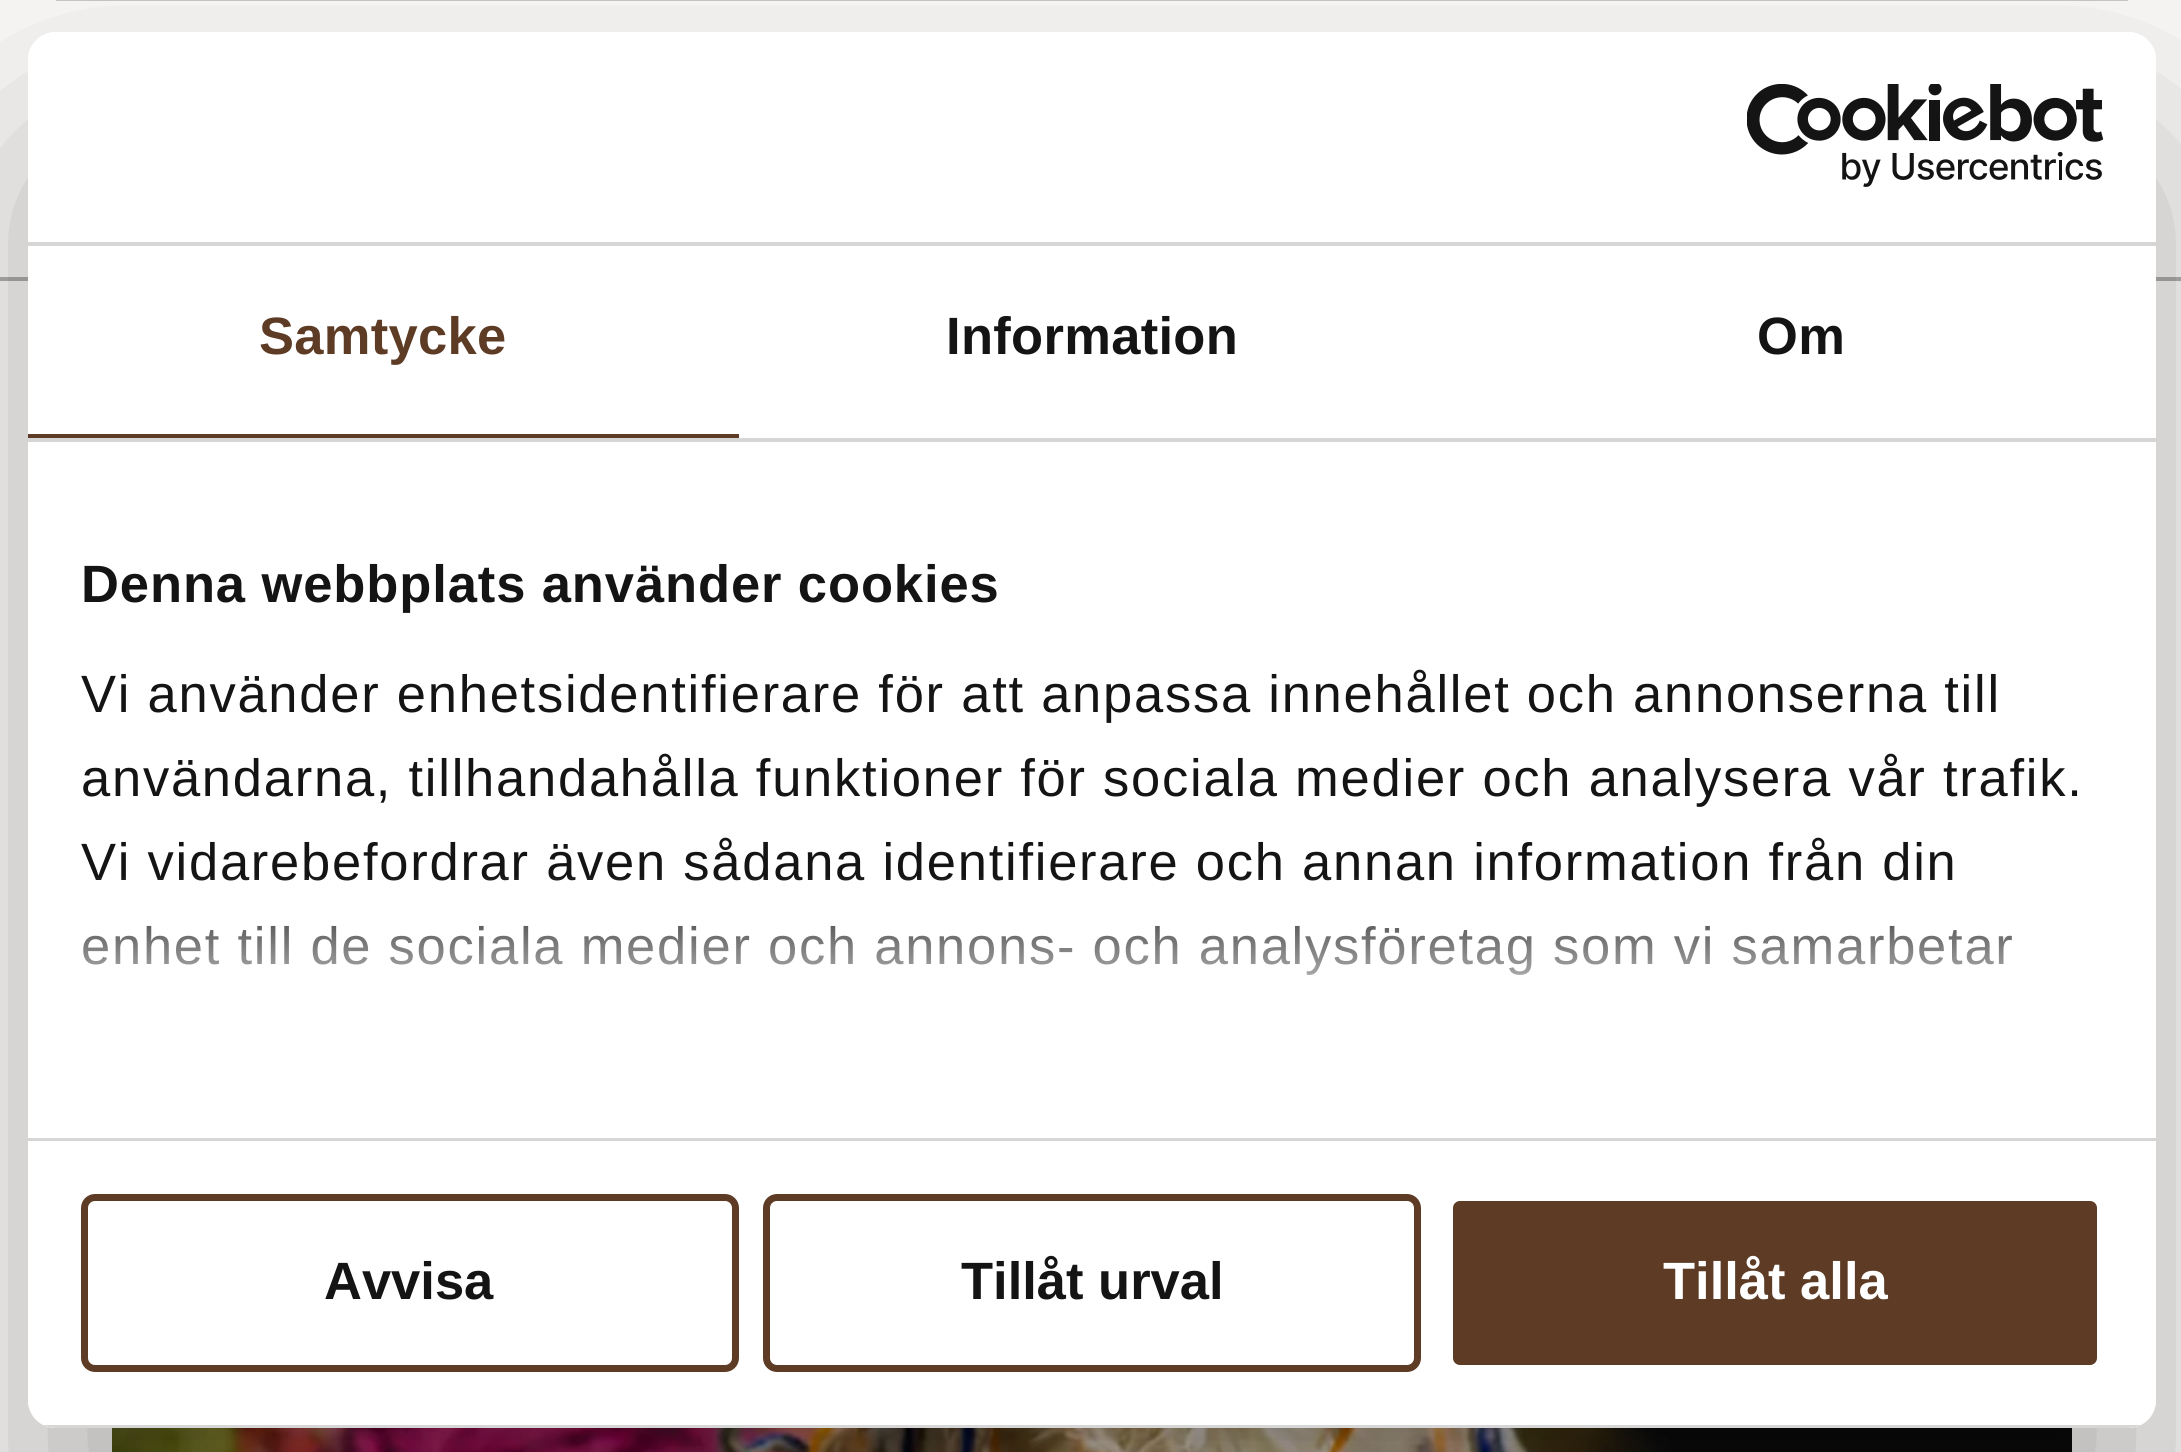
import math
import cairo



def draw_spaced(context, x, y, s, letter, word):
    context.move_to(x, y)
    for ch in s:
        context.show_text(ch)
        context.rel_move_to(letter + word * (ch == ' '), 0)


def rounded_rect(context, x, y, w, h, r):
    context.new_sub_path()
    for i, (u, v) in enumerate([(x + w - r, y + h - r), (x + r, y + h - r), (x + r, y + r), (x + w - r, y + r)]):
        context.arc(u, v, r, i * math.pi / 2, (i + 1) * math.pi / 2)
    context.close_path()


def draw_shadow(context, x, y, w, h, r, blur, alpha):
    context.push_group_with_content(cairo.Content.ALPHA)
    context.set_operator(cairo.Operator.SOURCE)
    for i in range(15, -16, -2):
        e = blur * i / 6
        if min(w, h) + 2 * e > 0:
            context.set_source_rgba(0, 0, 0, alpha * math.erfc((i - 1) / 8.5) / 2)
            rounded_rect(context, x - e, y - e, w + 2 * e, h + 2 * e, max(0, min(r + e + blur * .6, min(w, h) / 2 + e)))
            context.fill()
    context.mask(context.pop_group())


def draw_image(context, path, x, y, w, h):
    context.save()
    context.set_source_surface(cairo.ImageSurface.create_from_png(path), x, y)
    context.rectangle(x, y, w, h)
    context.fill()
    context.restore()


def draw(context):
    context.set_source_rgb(252 / 255, 250 / 255, 248 / 255)
    context.paint()
    context.set_source_rgb(176 / 255, 175 / 255, 174 / 255)
    context.rectangle(0, 277, 2181, 4)
    context.fill()
    context.set_source_rgb(202 / 255, 200 / 255, 198 / 255)
    context.rectangle(56, 0, 2072, 1)
    context.fill()
    draw_image(context, "images/1.png", 112, 1428, 1960, 24)
    context.save()
    context.set_fill_rule(cairo.FillRule.EVEN_ODD)
    context.new_path()
    context.move_to(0, 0)
    context.line_to(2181, 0)
    context.line_to(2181, 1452)
    context.line_to(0, 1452)
    context.close_path()
    context.move_to(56, 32)
    context.line_to(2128, 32)
    context.curve_to(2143.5, 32, 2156, 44.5, 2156, 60)
    context.line_to(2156, 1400)
    context.curve_to(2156, 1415.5, 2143.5, 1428, 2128, 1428)
    context.line_to(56, 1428)
    context.curve_to(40.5, 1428, 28, 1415.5, 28, 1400)
    context.line_to(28, 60)
    context.curve_to(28, 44.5, 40.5, 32, 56, 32)
    context.close_path()
    context.clip()
    context.set_source_rgb(0, 0, 0)
    draw_shadow(context, 28, 144, 2128, 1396, 28, 119, 0.3)
    context.restore()
    context.set_source_rgb(1, 1, 1)
    rounded_rect(context, 28, 32, 2128, 1396, 28)
    context.fill()
    context.set_source_rgb(214 / 255, 214 / 255, 214 / 255)
    context.rectangle(28, 242, 2128, 4)
    context.fill()
    draw_image(context, "images/2.png", 1747, 84, 357, 103)
    context.rectangle(28, 438, 2128, 4)
    context.fill()
    context.set_source_rgb(93 / 255, 59 / 255, 36 / 255)
    context.rectangle(28, 434, 711, 4)
    context.fill()
    context.set_source_rgb(214 / 255, 214 / 255, 214 / 255)
    context.rectangle(28, 1138, 2128, 3)
    context.fill()
    context.save()
    rounded_rect(context, 28, 32, 2128, 1396, 28)
    context.clip()
    context.rectangle(43, 1425, 2098, 3)
    context.fill()
    context.restore()
    rounded_rect(context, 84.5, 1197.5, 651, 171, 10.5)
    context.set_source_rgb(93 / 255, 59 / 255, 36 / 255)
    context.set_line_width(7)
    context.stroke()
    rounded_rect(context, 766.5, 1197.5, 651, 171, 10.5)
    context.stroke()
    rounded_rect(context, 1449.5, 1197.5, 651, 171, 10.5)
    context.fill_preserve()
    context.set_source_rgb(1, 1, 1)
    context.stroke()
    context.select_font_face("Liberation Sans", cairo.FontSlant.NORMAL, cairo.FontWeight.BOLD)
    context.set_font_size(52.5)
    context.set_source_rgb(93 / 255, 59 / 255, 36 / 255)
    draw_spaced(context, 259, 354, "Samtycke", 0.3, 0)
    context.set_source_rgb(20 / 255, 20 / 255, 20 / 255)
    draw_spaced(context, 946, 354, "Information", 0.3, 0)
    draw_spaced(context, 1757, 354, "Om", 0.3, 0)
    draw_spaced(context, 81, 602, "Denna webbplats använder cookies", 0.9, 0)
    context.select_font_face("Liberation Sans")
    draw_spaced(context, 81, 712, "Vi använder enhetsidentifierare för att anpassa innehållet och annonserna till", 1.75, 0)
    draw_spaced(context, 81, 796, "användarna, tillhandahålla funktioner för sociala medier och analysera vår trafik.", 1.75, 0)
    draw_spaced(context, 81, 880, "Vi vidarebefordrar även sådana identifierare och annan information från din", 1.75, 0)
    draw_spaced(context, 81, 964, "enhet till de sociala medier och annons- och analysföretag som vi samarbetar", 1.75, 0)
    gradient = cairo.LinearGradient(1069, 1136, 1069, 873)
    gradient.add_color_stop_rgba(0, 1, 1, 1, 1)
    gradient.add_color_stop_rgba(0.5, 1, 1, 1, 0.8)
    gradient.add_color_stop_rgba(1, 1, 1, 1, 0)
    context.set_source(gradient)
    context.rectangle(82, 877, 1930, 98)
    context.fill()
    context.select_font_face("Liberation Sans", cairo.FontSlant.NORMAL, cairo.FontWeight.BOLD)
    context.set_source_rgb(20 / 255, 20 / 255, 20 / 255)
    context.move_to(324, 1299)
    context.show_text("Avvisa")
    context.move_to(961, 1299)
    context.show_text("Tillåt urval")
    context.set_source_rgb(1, 1, 1)
    context.move_to(1663, 1299)
    context.show_text("Tillåt alla")


surface = cairo.ImageSurface(cairo.Format.RGB24, 2181, 1452)
context = cairo.Context(surface)
options = cairo.FontOptions()
options.set_hint_metrics(cairo.HintMetrics.OFF)
options.set_hint_style(cairo.HintStyle.NONE)
context.set_font_options(options)
context.set_miter_limit(4)
draw(context)
surface.write_to_png("out.png")
